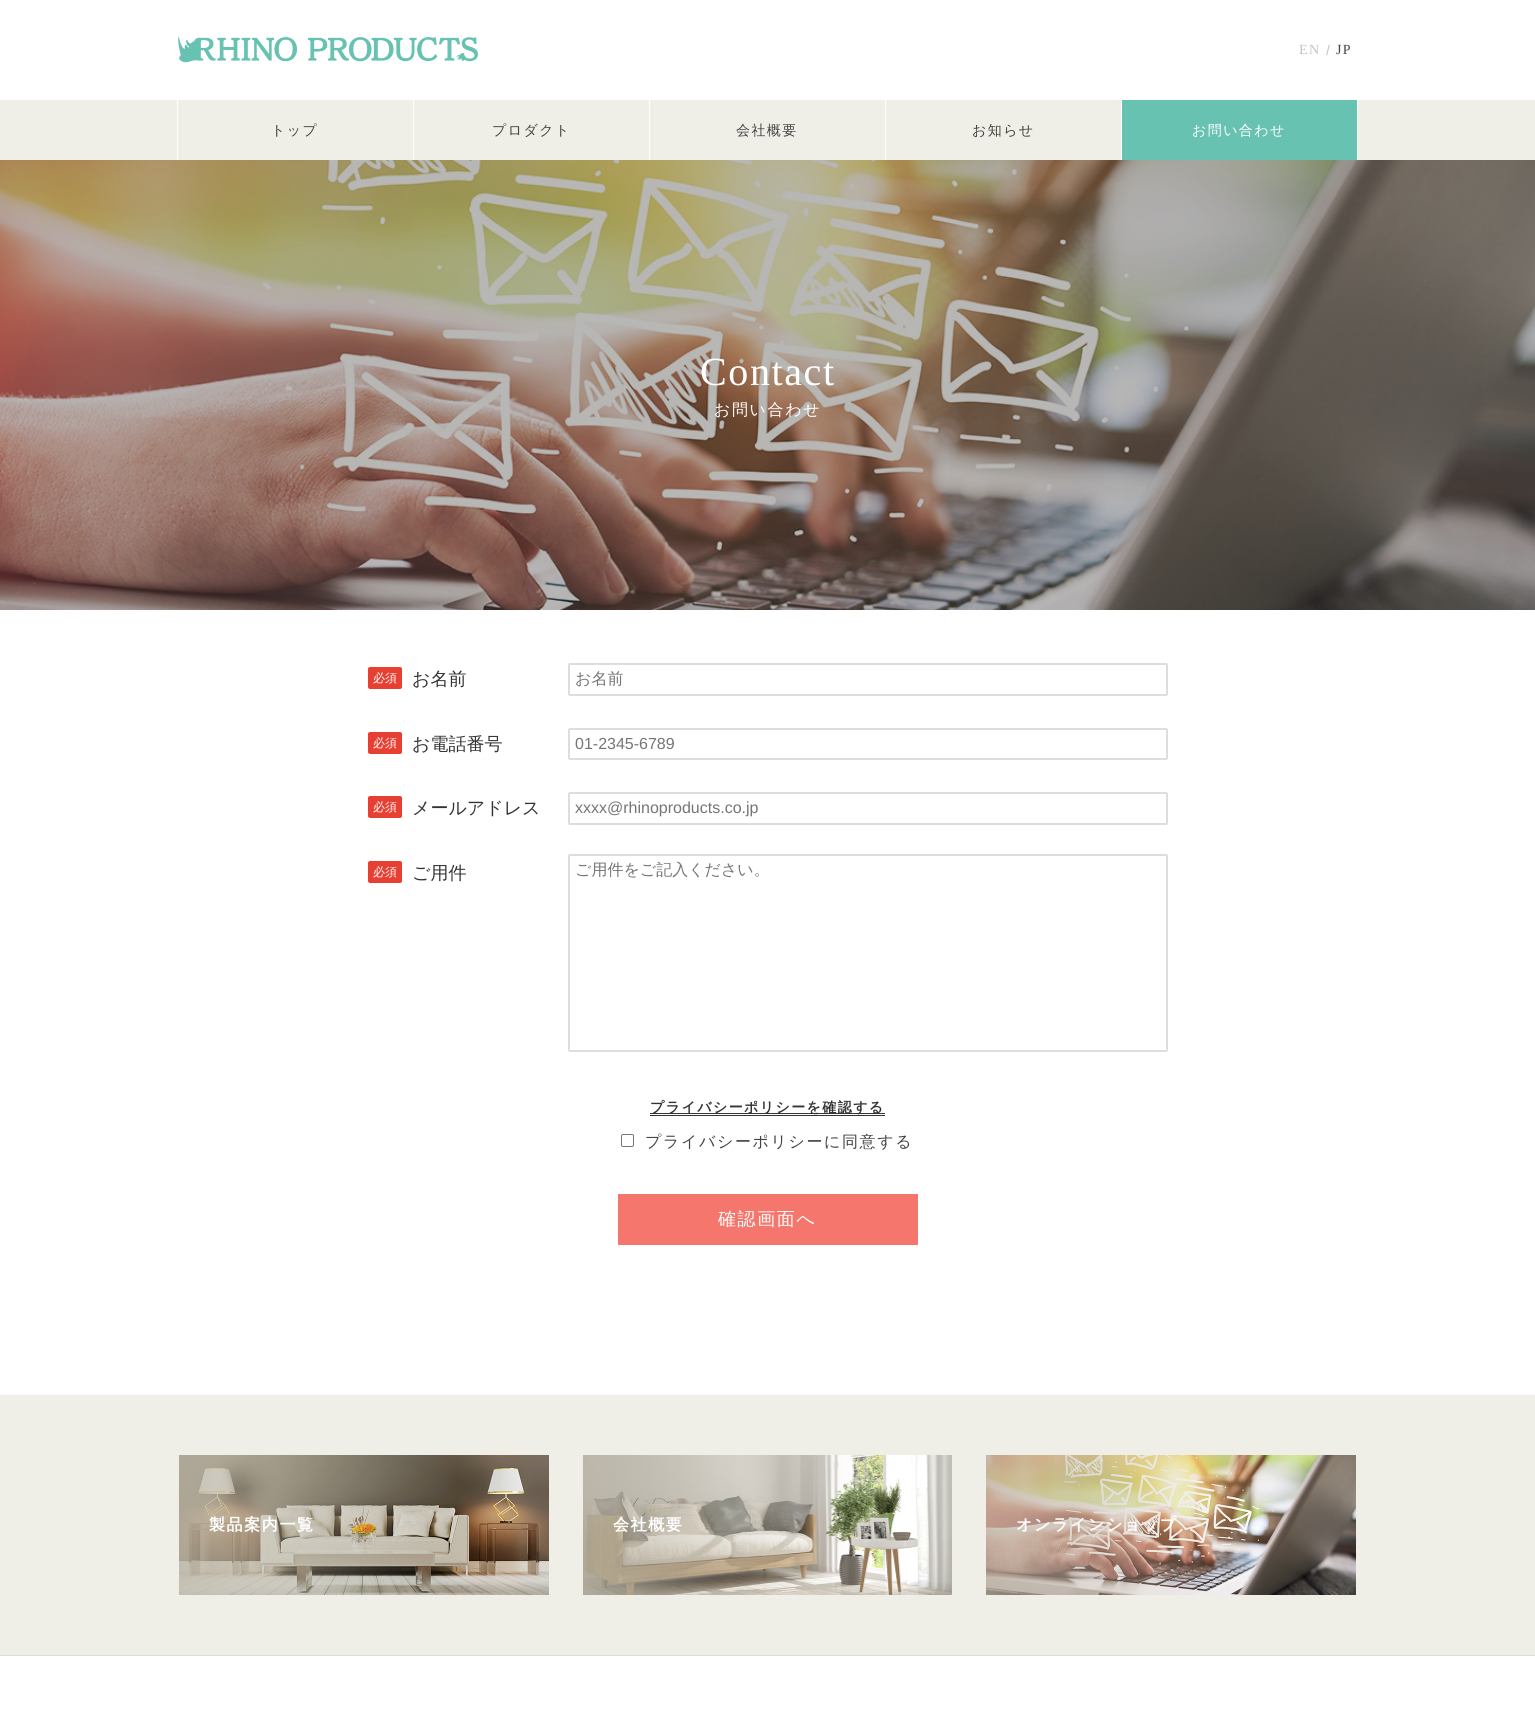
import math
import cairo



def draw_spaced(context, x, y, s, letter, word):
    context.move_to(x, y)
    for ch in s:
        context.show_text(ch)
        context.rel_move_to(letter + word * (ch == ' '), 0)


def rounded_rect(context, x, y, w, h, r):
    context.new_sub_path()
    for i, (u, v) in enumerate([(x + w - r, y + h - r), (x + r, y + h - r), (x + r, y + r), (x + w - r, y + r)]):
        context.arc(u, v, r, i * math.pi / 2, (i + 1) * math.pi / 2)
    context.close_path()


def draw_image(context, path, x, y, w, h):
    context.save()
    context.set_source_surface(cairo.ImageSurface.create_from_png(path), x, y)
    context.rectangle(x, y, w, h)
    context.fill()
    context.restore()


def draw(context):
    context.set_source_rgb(1, 1, 1)
    context.paint()
    draw_image(context, "images/1.png", 178, 37, 300, 26)
    context.set_source_rgb(239 / 255, 239 / 255, 232 / 255)
    context.rectangle(0, 100, 1535, 60)
    context.fill()
    context.set_source_rgb(1, 1, 1)
    context.rectangle(413, 100, 1, 60)
    context.fill()
    context.rectangle(177, 100, 1, 60)
    context.fill()
    context.rectangle(885, 100, 1, 60)
    context.fill()
    context.rectangle(649, 100, 1, 60)
    context.fill()
    context.rectangle(1121, 100, 1, 60)
    context.fill()
    context.rectangle(1357, 100, 1, 60)
    context.fill()
    context.set_source_rgb(103 / 255, 194 / 255, 177 / 255)
    context.rectangle(1122, 100, 235, 60)
    context.fill()
    draw_image(context, "images/2.png", 0, 160, 1535, 450)
    context.set_source_rgb(231 / 255, 63 / 255, 50 / 255)
    rounded_rect(context, 368, 667, 34, 22, 2)
    context.fill()
    rounded_rect(context, 569, 664, 598, 31, 1)
    context.set_source_rgb(221 / 255, 221 / 255, 221 / 255)
    context.stroke()
    context.set_source_rgb(231 / 255, 63 / 255, 50 / 255)
    rounded_rect(context, 368, 732, 34, 22, 2)
    context.fill()
    rounded_rect(context, 569, 729, 598, 30, 1)
    context.set_source_rgb(221 / 255, 221 / 255, 221 / 255)
    context.stroke()
    context.set_source_rgb(231 / 255, 63 / 255, 50 / 255)
    rounded_rect(context, 368, 796, 34, 22, 2)
    context.fill()
    rounded_rect(context, 569, 793, 598, 31, 1)
    context.set_source_rgb(221 / 255, 221 / 255, 221 / 255)
    context.stroke()
    context.set_source_rgb(231 / 255, 63 / 255, 50 / 255)
    rounded_rect(context, 368, 861, 34, 22, 2)
    context.fill()
    rounded_rect(context, 569, 855, 598, 196, 1)
    context.set_source_rgb(221 / 255, 221 / 255, 221 / 255)
    context.stroke()
    context.set_source_rgb(51 / 255, 51 / 255, 51 / 255)
    context.rectangle(650, 1115, 235, 1)
    context.fill()
    context.rectangle(650, 1113, 235, 1)
    context.fill()
    rounded_rect(context, 621.5, 1134.5, 12, 12, 1.5)
    context.set_source_rgb(118 / 255, 118 / 255, 118 / 255)
    context.set_line_width(1)
    context.stroke()
    context.set_source_rgb(245 / 255, 118 / 255, 109 / 255)
    context.rectangle(618, 1194, 300, 51)
    context.fill()
    context.set_source_rgb(239 / 255, 239 / 255, 232 / 255)
    context.rectangle(0, 1395, 1535, 260)
    context.fill()
    context.set_source_rgb(221 / 255, 221 / 255, 221 / 255)
    context.rectangle(0, 1655, 1535, 1)
    context.fill()
    draw_image(context, "images/3.png", 179, 1455, 370, 140)
    draw_image(context, "images/4.png", 583, 1455, 369, 140)
    draw_image(context, "images/5.png", 986, 1455, 370, 140)
    context.select_font_face("Liberation Serif")
    context.set_font_size(14)
    context.set_source_rgb(194 / 255, 194 / 255, 194 / 255)
    draw_spaced(context, 1299, 54, "EN", 1.4, 0)
    context.select_font_face("Liberation Sans")
    draw_spaced(context, 1326, 55, "/", 1.6, 0)
    context.select_font_face("Liberation Serif")
    context.set_source_rgb(68 / 255, 68 / 255, 68 / 255)
    draw_spaced(context, 1336, 54, "JP", 1.4, 0)
    context.select_font_face("WenQuanYi Zen Hei Medium")
    draw_spaced(context, 271, 135, "トップ", 1.4, 0)
    draw_spaced(context, 492, 135, "プロダクト", 1.4, 0)
    draw_spaced(context, 736, 135, "会社概要", 1.4, 0)
    draw_spaced(context, 972, 135, "お知らせ", 1.4, 0)
    context.set_source_rgb(1, 1, 1)
    draw_spaced(context, 1192, 135, "お問い合わせ", 1.4, 0)
    context.select_font_face("Liberation Serif")
    context.set_font_size(40)
    draw_spaced(context, 700, 385, "Contact", 1.6, 0)
    context.select_font_face("WenQuanYi Zen Hei Medium")
    context.set_font_size(16)
    draw_spaced(context, 714, 415, "お問い合わせ", 1.6, 0)
    context.set_font_size(12)
    context.move_to(373, 682)
    context.show_text("必須")
    context.set_font_size(18)
    context.set_source_rgb(51 / 255, 51 / 255, 51 / 255)
    context.move_to(412, 685)
    context.show_text("お名前")
    context.set_font_size(16)
    context.set_source_rgb(117 / 255, 117 / 255, 117 / 255)
    context.move_to(575, 684)
    context.show_text("お名前")
    context.set_font_size(12)
    context.set_source_rgb(1, 1, 1)
    context.move_to(373, 747)
    context.show_text("必須")
    context.set_font_size(18)
    context.set_source_rgb(51 / 255, 51 / 255, 51 / 255)
    context.move_to(412, 750)
    context.show_text("お電話番号")
    context.select_font_face("Liberation Sans")
    context.set_font_size(16)
    context.set_source_rgb(117 / 255, 117 / 255, 117 / 255)
    context.move_to(575, 749)
    context.show_text("01-2345-6789")
    context.select_font_face("WenQuanYi Zen Hei Medium")
    context.set_font_size(12)
    context.set_source_rgb(1, 1, 1)
    context.move_to(373, 811)
    context.show_text("必須")
    context.set_font_size(18)
    context.set_source_rgb(51 / 255, 51 / 255, 51 / 255)
    context.move_to(412, 814)
    context.show_text("メールアドレス")
    context.select_font_face("Liberation Sans")
    context.set_font_size(16)
    context.set_source_rgb(117 / 255, 117 / 255, 117 / 255)
    context.move_to(575, 813)
    context.show_text("xxxx@rhinoproducts.co.jp")
    context.select_font_face("WenQuanYi Zen Hei Medium")
    context.set_font_size(12)
    context.set_source_rgb(1, 1, 1)
    context.move_to(373, 876)
    context.show_text("必須")
    context.set_font_size(18)
    context.set_source_rgb(51 / 255, 51 / 255, 51 / 255)
    context.move_to(412, 879)
    context.show_text("ご用件")
    context.set_font_size(16)
    context.set_source_rgb(117 / 255, 117 / 255, 117 / 255)
    context.move_to(575, 875)
    context.show_text("ご用件をご記入ください。")
    context.select_font_face("WenQuanYi Zen Hei", cairo.FontSlant.NORMAL, cairo.FontWeight.BOLD)
    context.set_font_size(14)
    context.set_source_rgb(51 / 255, 51 / 255, 51 / 255)
    draw_spaced(context, 650, 1112, "プライバシーポリシーを確認する", 1.4, 0)
    context.select_font_face("WenQuanYi Zen Hei Medium")
    context.set_font_size(16)
    context.set_source_rgb(68 / 255, 68 / 255, 68 / 255)
    draw_spaced(context, 645, 1147, "プライバシーポリシーに同意する", 1.6, 0)
    context.set_font_size(18)
    context.set_source_rgb(1, 1, 1)
    draw_spaced(context, 718, 1225, "確認画面へ", 1.6, 0)
    context.select_font_face("WenQuanYi Zen Hei", cairo.FontSlant.NORMAL, cairo.FontWeight.BOLD)
    context.set_font_size(16)
    draw_spaced(context, 209, 1530, "製品案内一覧", 1.6, 0)
    draw_spaced(context, 613, 1530, "会社概要", 1.6, 0)
    draw_spaced(context, 1016, 1530, "オンラインショップ", 1.6, 0)


surface = cairo.ImageSurface(cairo.Format.RGB24, 1535, 1710)
context = cairo.Context(surface)
options = cairo.FontOptions()
options.set_hint_metrics(cairo.HintMetrics.OFF)
options.set_hint_style(cairo.HintStyle.NONE)
context.set_font_options(options)
context.set_miter_limit(4)
draw(context)
surface.write_to_png("out.png")
